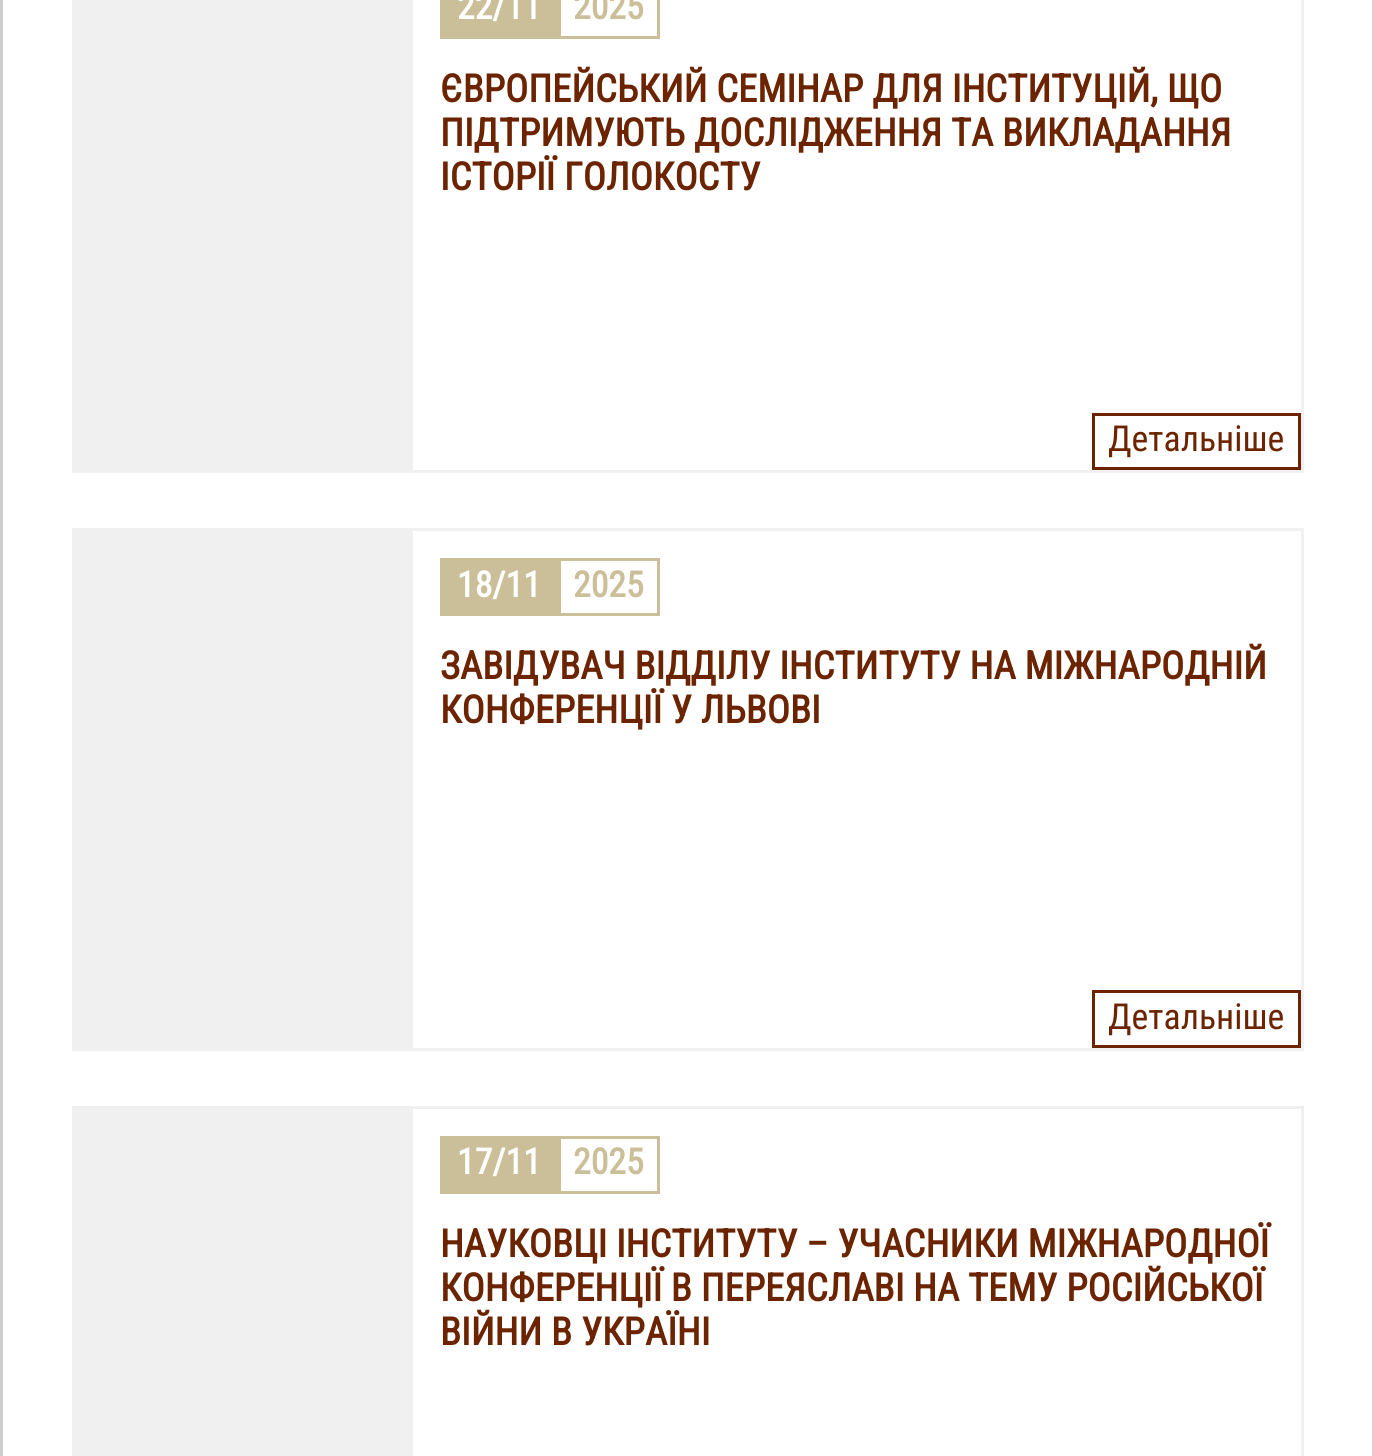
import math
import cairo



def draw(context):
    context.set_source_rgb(1, 1, 1)
    context.paint()
    context.rectangle(1.5, -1.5, 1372, 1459)
    context.set_source_rgb(205 / 255, 205 / 255, 205 / 255)
    context.set_line_width(3)
    context.stroke()
    context.set_source_rgb(240 / 255, 240 / 255, 240 / 255)
    context.rectangle(72, 0, 341, 473)
    context.fill()
    context.rectangle(1301, 0, 3, 473)
    context.fill()
    context.rectangle(413, 470, 891, 3)
    context.fill()
    context.set_source_rgb(202 / 255, 191 / 255, 152 / 255)
    context.rectangle(440, 0, 118, 39)
    context.fill()
    context.rectangle(559.5, -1.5, 99, 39)
    context.stroke()
    context.rectangle(1093.5, 414.5, 206, 54)
    context.set_source_rgb(108 / 255, 36 / 255, 0)
    context.stroke()
    context.set_source_rgb(240 / 255, 240 / 255, 240 / 255)
    context.rectangle(72, 528, 341, 523)
    context.fill()
    context.rectangle(413, 528, 891, 3)
    context.fill()
    context.rectangle(1301, 528, 3, 523)
    context.fill()
    context.rectangle(413, 1048, 891, 3)
    context.fill()
    context.set_source_rgb(202 / 255, 191 / 255, 152 / 255)
    context.rectangle(440, 558, 118, 58)
    context.fill()
    context.rectangle(559.5, 559.5, 99, 55)
    context.stroke()
    context.rectangle(1093.5, 991.5, 206, 55)
    context.set_source_rgb(108 / 255, 36 / 255, 0)
    context.stroke()
    context.set_source_rgb(240 / 255, 240 / 255, 240 / 255)
    context.rectangle(72, 1106, 341, 350)
    context.fill()
    context.rectangle(413, 1106, 891, 3)
    context.fill()
    context.rectangle(1301, 1106, 3, 350)
    context.fill()
    context.set_source_rgb(202 / 255, 191 / 255, 152 / 255)
    context.rectangle(440, 1136, 118, 58)
    context.fill()
    context.rectangle(559.5, 1137.5, 99, 55)
    context.stroke()
    context.select_font_face("Roboto Condensed", cairo.FontSlant.NORMAL, cairo.FontWeight.BOLD)
    context.set_font_size(35.75)
    context.set_source_rgb(1, 1, 1)
    context.move_to(457, 19)
    context.show_text("22/11")
    context.set_source_rgb(202 / 255, 191 / 255, 152 / 255)
    context.move_to(573, 19)
    context.show_text("2025")
    context.set_font_size(38.5)
    context.set_source_rgb(108 / 255, 36 / 255, 0)
    context.move_to(440, 102)
    context.show_text("ЄВРОПЕЙСЬКИЙ СЕМІНАР ДЛЯ ІНСТИТУЦІЙ, ЩО")
    context.move_to(440, 146)
    context.show_text("ПІДТРИМУЮТЬ ДОСЛІДЖЕННЯ ТА ВИКЛАДАННЯ")
    context.move_to(440, 190)
    context.show_text("ІСТОРІЇ ГОЛОКОСТУ")
    context.select_font_face("Roboto Condensed")
    context.set_font_size(35.75)
    context.move_to(1108, 451)
    context.show_text("Детальніше")
    context.select_font_face("Roboto Condensed", cairo.FontSlant.NORMAL, cairo.FontWeight.BOLD)
    context.set_source_rgb(1, 1, 1)
    context.move_to(457, 597)
    context.show_text("18/11")
    context.set_source_rgb(202 / 255, 191 / 255, 152 / 255)
    context.move_to(573, 597)
    context.show_text("2025")
    context.set_font_size(38.5)
    context.set_source_rgb(108 / 255, 36 / 255, 0)
    context.move_to(440, 679)
    context.show_text("ЗАВІДУВАЧ ВІДДІЛУ ІНСТИТУТУ НА МІЖНАРОДНІЙ")
    context.move_to(440, 723)
    context.show_text("КОНФЕРЕНЦІЇ У ЛЬВОВІ")
    context.select_font_face("Roboto Condensed")
    context.set_font_size(35.75)
    context.move_to(1108, 1029)
    context.show_text("Детальніше")
    context.select_font_face("Roboto Condensed", cairo.FontSlant.NORMAL, cairo.FontWeight.BOLD)
    context.set_source_rgb(1, 1, 1)
    context.move_to(457, 1174)
    context.show_text("17/11")
    context.set_source_rgb(202 / 255, 191 / 255, 152 / 255)
    context.move_to(573, 1174)
    context.show_text("2025")
    context.set_font_size(38.5)
    context.set_source_rgb(108 / 255, 36 / 255, 0)
    context.move_to(440, 1257)
    context.show_text("НАУКОВЦІ ІНСТИТУТУ – УЧАСНИКИ МІЖНАРОДНОЇ")
    context.move_to(440, 1301)
    context.show_text("КОНФЕРЕНЦІЇ В ПЕРЕЯСЛАВІ НА ТЕМУ РОСІЙСЬКОЇ")
    context.move_to(440, 1345)
    context.show_text("ВІЙНИ В УКРАЇНІ")


surface = cairo.ImageSurface(cairo.Format.RGB24, 1373, 1456)
context = cairo.Context(surface)
options = cairo.FontOptions()
options.set_hint_metrics(cairo.HintMetrics.OFF)
options.set_hint_style(cairo.HintStyle.NONE)
context.set_font_options(options)
context.set_miter_limit(4)
draw(context)
surface.write_to_png("out.png")
